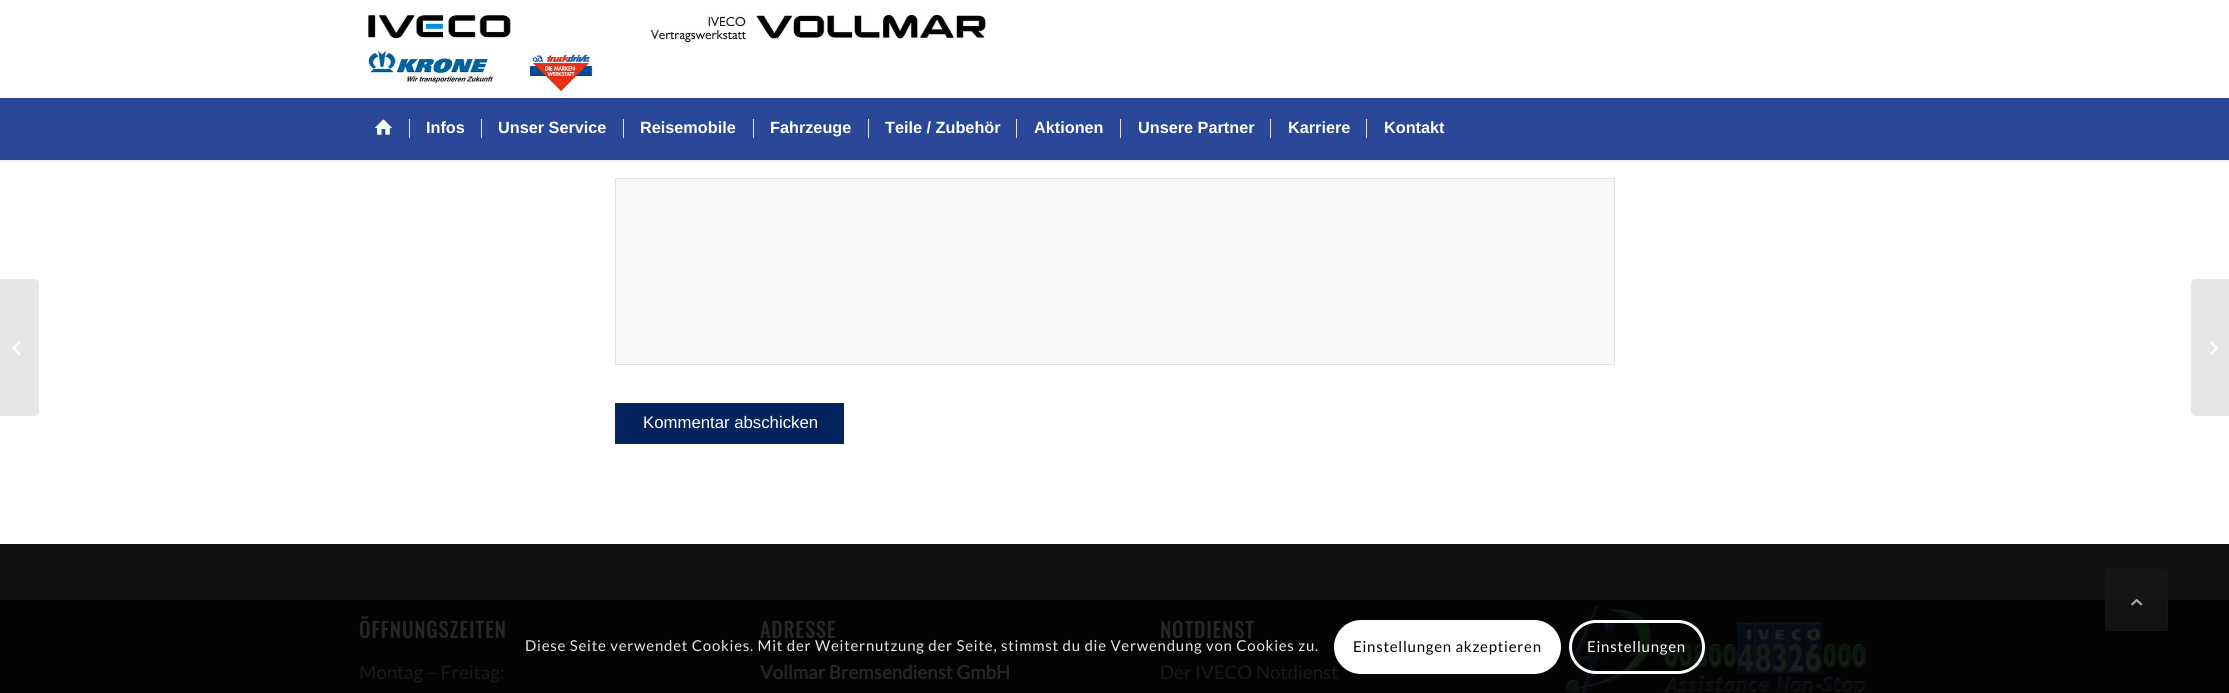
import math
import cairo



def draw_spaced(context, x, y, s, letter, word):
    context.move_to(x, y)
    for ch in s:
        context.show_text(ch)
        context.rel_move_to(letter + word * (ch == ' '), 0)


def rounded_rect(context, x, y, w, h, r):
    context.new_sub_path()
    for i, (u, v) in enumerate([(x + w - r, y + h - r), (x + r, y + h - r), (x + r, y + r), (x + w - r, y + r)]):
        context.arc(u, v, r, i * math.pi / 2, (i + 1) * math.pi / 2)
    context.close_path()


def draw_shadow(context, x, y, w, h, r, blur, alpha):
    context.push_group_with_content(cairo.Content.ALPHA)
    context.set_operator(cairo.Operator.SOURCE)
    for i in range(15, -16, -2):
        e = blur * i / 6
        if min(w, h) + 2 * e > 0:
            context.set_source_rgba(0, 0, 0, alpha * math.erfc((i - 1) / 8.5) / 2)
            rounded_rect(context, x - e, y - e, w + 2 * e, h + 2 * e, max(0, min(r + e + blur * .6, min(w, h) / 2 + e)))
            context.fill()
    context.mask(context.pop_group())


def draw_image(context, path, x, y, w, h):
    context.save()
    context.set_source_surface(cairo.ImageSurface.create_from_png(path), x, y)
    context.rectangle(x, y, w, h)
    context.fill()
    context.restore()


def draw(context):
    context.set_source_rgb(1, 1, 1)
    context.paint()
    context.set_source_rgb(0, 0, 0)
    draw_shadow(context, -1, -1, 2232, 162, 0, 1, 0.1)
    context.set_source_rgb(1, 1, 1)
    context.rectangle(0, 0, 2229, 98)
    context.fill()
    draw_image(context, "images/1.png", 368, 13, 618, 81)
    context.set_source_rgb(42 / 255, 71 / 255, 152 / 255)
    context.rectangle(0, 98, 2229, 62)
    context.fill()
    draw_image(context, "images/2.png", 375, 119, 17, 16)
    context.set_source_rgb(225 / 255, 225 / 255, 225 / 255)
    context.rectangle(409, 119, 1, 19)
    context.fill()
    context.rectangle(481, 119, 1, 19)
    context.fill()
    context.rectangle(623, 119, 1, 19)
    context.fill()
    context.rectangle(753, 119, 1, 19)
    context.fill()
    context.rectangle(868, 119, 1, 19)
    context.fill()
    context.rectangle(1016, 119, 1, 19)
    context.fill()
    context.rectangle(1120, 119, 1, 19)
    context.fill()
    context.rectangle(1270, 119, 1, 19)
    context.fill()
    context.rectangle(1366, 119, 1, 19)
    context.fill()
    context.set_source_rgb(230 / 255, 230 / 255, 230 / 255)
    context.new_path()
    context.move_to(0, 279)
    context.line_to(34, 279)
    context.curve_to(37, 279, 39, 281, 39, 284)
    context.line_to(39, 411)
    context.curve_to(39, 414, 37, 416, 34, 416)
    context.line_to(0, 416)
    context.close_path()
    context.fill()
    draw_image(context, "images/3.png", 12, 341, 9, 14)
    context.new_path()
    context.move_to(2196, 279)
    context.line_to(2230, 279)
    context.line_to(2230, 416)
    context.line_to(2196, 416)
    context.curve_to(2193, 416, 2191, 414, 2191, 411)
    context.line_to(2191, 284)
    context.curve_to(2191, 281, 2193, 279, 2196, 279)
    context.close_path()
    context.fill()
    draw_image(context, "images/4.png", 2210, 341, 8, 14)
    context.set_source_rgb(248 / 255, 248 / 255, 248 / 255)
    context.rectangle(615.5, 178.5, 999, 186)
    context.fill_preserve()
    context.set_source_rgb(225 / 255, 225 / 255, 225 / 255)
    context.set_line_width(1)
    context.stroke()
    context.set_source_rgb(3 / 255, 37 / 255, 92 / 255)
    context.rectangle(615, 403, 229, 41)
    context.fill()
    context.set_source_rgb(17 / 255, 17 / 255, 17 / 255)
    context.rectangle(0, 544, 2229, 56)
    context.fill()
    context.set_source_rgb(3 / 255, 3 / 255, 3 / 255)
    context.rectangle(0, 600, 2229, 93)
    context.fill()
    draw_image(context, "images/5.png", 1565, 605, 302, 88)
    context.set_source_rgba(25 / 255, 25 / 255, 25 / 255, 0.7)
    rounded_rect(context, 2105, 569, 63, 62, 2.5)
    context.fill()
    rounded_rect(context, 2105.5, 569.5, 62, 61, 2)
    context.stroke()
    draw_image(context, "images/6.png", 2131, 599, 12, 7)
    rounded_rect(context, 1570.5, 621.5, 133, 51, 25.5)
    context.set_source_rgb(1, 1, 1)
    context.set_line_width(3)
    context.stroke()
    context.select_font_face("Liberation Sans", cairo.FontSlant.NORMAL, cairo.FontWeight.BOLD)
    context.set_font_size(16.25)
    context.move_to(426, 133)
    context.show_text("Infos")
    context.move_to(498, 133)
    context.show_text("Unser Service")
    context.move_to(640, 133)
    context.show_text("Reisemobile")
    context.move_to(770, 133)
    context.show_text("Fahrzeuge")
    context.move_to(885, 133)
    context.show_text("Teile / Zubehör")
    context.move_to(1034, 133)
    context.show_text("Aktionen")
    context.move_to(1138, 133)
    context.show_text("Unsere Partner")
    context.move_to(1288, 133)
    context.show_text("Karriere")
    context.move_to(1384, 133)
    context.show_text("Kontakt")
    context.select_font_face("Liberation Sans")
    context.set_font_size(16.75)
    context.move_to(643, 428)
    context.show_text("Kommentar abschicken")
    context.select_font_face("Oswald", cairo.FontSlant.NORMAL, cairo.FontWeight.BOLD)
    context.set_font_size(20.5)
    context.set_source_rgb(38 / 255, 38 / 255, 38 / 255)
    draw_spaced(context, 359, 638, "ÖFFNUNGSZEITEN", 1.25, 0)
    context.select_font_face("Lato")
    context.set_font_size(18.75)
    context.set_source_rgb(26 / 255, 26 / 255, 26 / 255)
    context.move_to(359, 679)
    context.show_text("Montag – Freitag:")
    context.select_font_face("Oswald", cairo.FontSlant.NORMAL, cairo.FontWeight.BOLD)
    context.set_font_size(20.5)
    context.set_source_rgb(38 / 255, 38 / 255, 38 / 255)
    draw_spaced(context, 760, 638, "ADRESSE", 1.25, 0)
    context.select_font_face("Lato", cairo.FontSlant.NORMAL, cairo.FontWeight.BOLD)
    context.set_font_size(18.75)
    context.move_to(760, 679)
    context.show_text("Vollmar Bremsendienst GmbH")
    context.select_font_face("Oswald", cairo.FontSlant.NORMAL, cairo.FontWeight.BOLD)
    context.set_font_size(20.5)
    draw_spaced(context, 1160, 638, "NOTDIENST", 1.25, 0)
    context.select_font_face("Lato")
    context.set_font_size(18.75)
    context.set_source_rgb(26 / 255, 26 / 255, 26 / 255)
    context.move_to(1160, 679)
    context.show_text("Der IVECO Notdienst")
    context.set_font_size(15)
    context.set_source_rgb(230 / 255, 230 / 255, 230 / 255)
    draw_spaced(context, 525, 651, "Diese Seite verwendet Cookies. Mit der Weiternutzung der Seite, stimmst du die Verwendung von Cookies zu.", 0.75, 0)
    context.set_source_rgb(1, 1, 1)
    rounded_rect(context, 1334, 620, 227, 54, 27)
    context.fill()
    context.set_source_rgb(0, 0, 0)
    draw_spaced(context, 1353, 652, "Einstellungen akzeptieren", 0.75, 0)
    context.set_source_rgb(1, 1, 1)
    draw_spaced(context, 1587, 652, "Einstellungen", 0.75, 0)


surface = cairo.ImageSurface(cairo.Format.RGB24, 2229, 693)
context = cairo.Context(surface)
options = cairo.FontOptions()
options.set_hint_metrics(cairo.HintMetrics.OFF)
options.set_hint_style(cairo.HintStyle.NONE)
context.set_font_options(options)
context.set_miter_limit(4)
draw(context)
surface.write_to_png("out.png")
